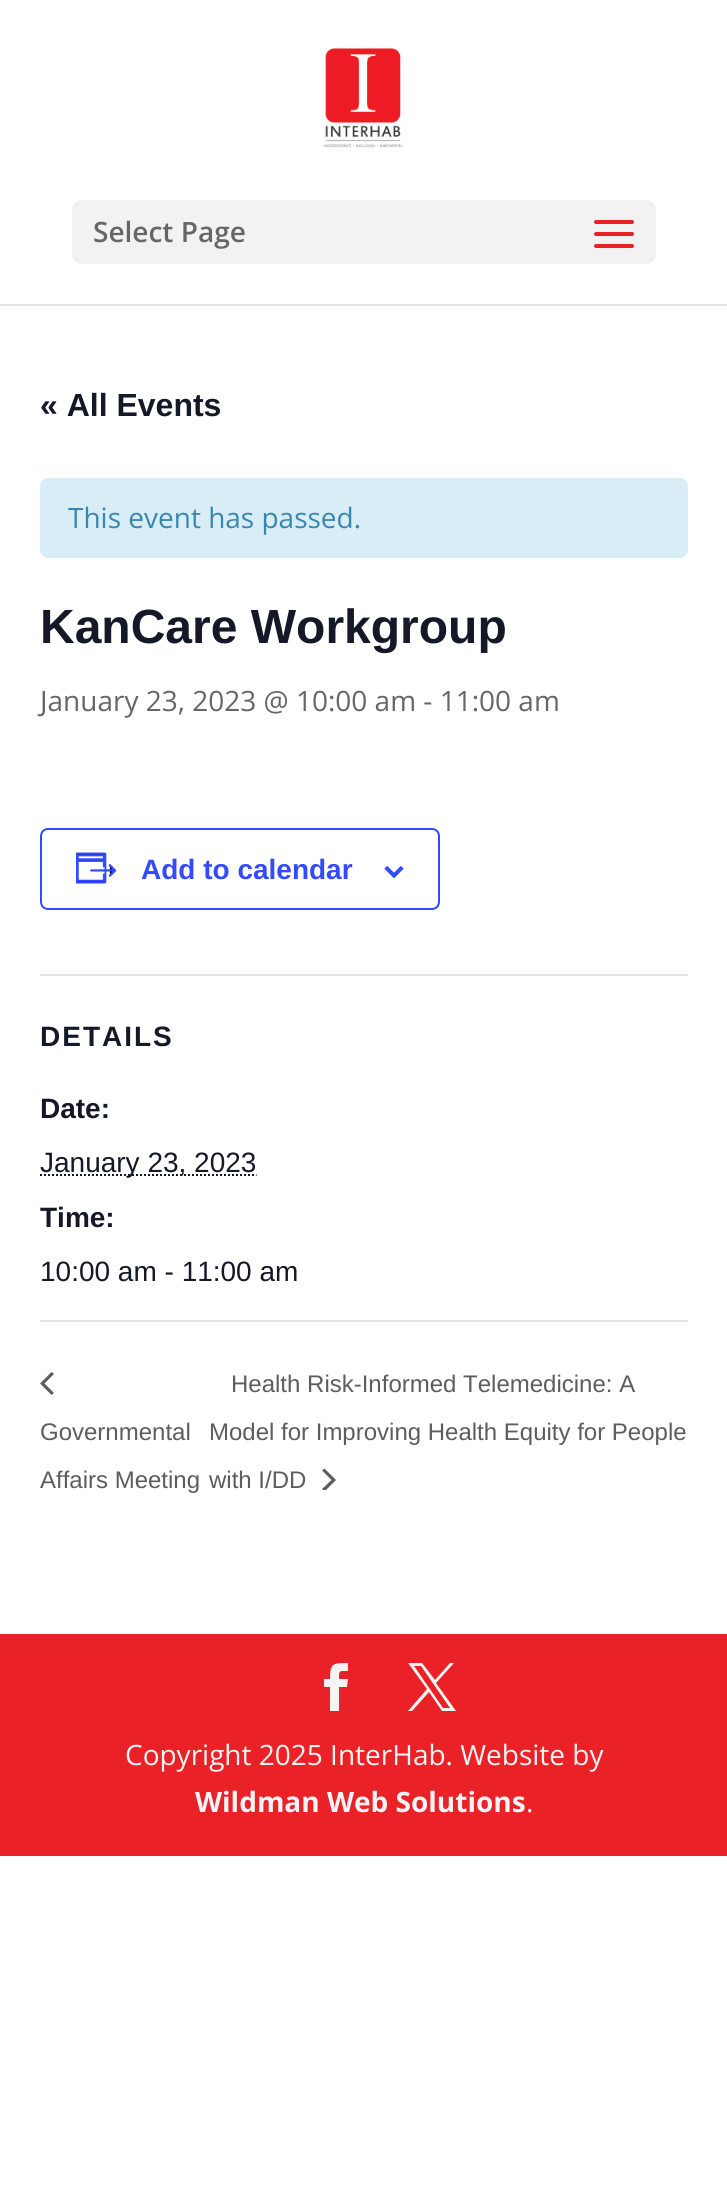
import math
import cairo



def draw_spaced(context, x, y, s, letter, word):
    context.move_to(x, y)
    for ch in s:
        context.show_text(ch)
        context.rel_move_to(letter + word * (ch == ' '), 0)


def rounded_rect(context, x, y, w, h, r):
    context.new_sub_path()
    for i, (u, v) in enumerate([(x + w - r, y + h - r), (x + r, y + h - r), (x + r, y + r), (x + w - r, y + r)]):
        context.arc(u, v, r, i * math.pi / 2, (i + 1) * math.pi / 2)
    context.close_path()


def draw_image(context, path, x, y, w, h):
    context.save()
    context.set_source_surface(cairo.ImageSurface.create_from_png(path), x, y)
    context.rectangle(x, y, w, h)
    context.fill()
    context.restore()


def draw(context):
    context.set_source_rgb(1, 1, 1)
    context.paint()
    context.set_source_rgb(230 / 255, 230 / 255, 230 / 255)
    context.rectangle(0, 304, 727, 2)
    context.fill()
    draw_image(context, "images/1.png", 324, 48, 79, 100)
    context.set_source_rgb(242 / 255, 242 / 255, 242 / 255)
    rounded_rect(context, 72, 200, 584, 64, 10)
    context.fill()
    draw_image(context, "images/2.png", 594, 220, 40, 28)
    context.set_source_rgb(217 / 255, 237 / 255, 247 / 255)
    rounded_rect(context, 40, 478, 648, 80, 8)
    context.fill()
    rounded_rect(context, 41, 829, 398, 80, 7)
    context.set_source_rgb(51 / 255, 74 / 255, 1)
    context.stroke()
    draw_image(context, "images/3.png", 76, 852, 41, 32)
    draw_image(context, "images/4.png", 384, 866, 20, 12)
    context.set_source_rgb(228 / 255, 228 / 255, 228 / 255)
    context.rectangle(40, 974, 648, 2)
    context.fill()
    context.new_path()
    context.move_to(40, 1175)
    context.line_to(256.5, 1175)
    context.set_source_rgb(20 / 255, 24 / 255, 39 / 255)
    context.set_dash([2, 2])
    context.stroke()
    context.set_source_rgb(228 / 255, 228 / 255, 228 / 255)
    context.rectangle(40, 1320, 648, 2)
    context.fill()
    context.set_source_rgb(93 / 255, 93 / 255, 93 / 255)
    context.new_path()
    context.move_to(54, 1393)
    context.line_to(51.5, 1395)
    context.line_to(40, 1383.5)
    context.line_to(51.5, 1372)
    context.line_to(54, 1374)
    context.line_to(44.5, 1383.5)
    context.close_path()
    context.fill()
    context.save()
    context.rectangle(322, 1468, 14, 22)
    context.clip()
    context.new_path()
    context.move_to(322, 1470.5)
    context.line_to(324.5, 1468.5)
    context.line_to(336, 1480)
    context.line_to(324.5, 1491.5)
    context.line_to(322, 1489)
    context.line_to(331.5, 1480)
    context.close_path()
    context.fill()
    context.restore()
    context.set_source_rgb(234 / 255, 34 / 255, 39 / 255)
    context.rectangle(0, 1634, 727, 222)
    context.fill()
    context.set_source_rgb(244 / 255, 244 / 255, 244 / 255)
    context.new_path()
    context.move_to(330, 1711)
    context.line_to(339, 1711)
    context.line_to(339, 1687)
    context.line_to(347, 1687)
    context.line_to(348, 1679)
    context.line_to(339, 1679)
    context.curve_to(339, 1670, 339, 1671, 348, 1671)
    context.line_to(348, 1663)
    context.curve_to(333, 1663, 330, 1663, 330, 1679)
    context.line_to(324, 1679)
    context.line_to(324, 1687)
    context.line_to(330, 1687)
    context.close_path()
    context.fill()
    context.new_path()
    context.move_to(408, 1663)
    context.line_to(427, 1689)
    context.line_to(408, 1711)
    context.line_to(412, 1711)
    context.line_to(429, 1692)
    context.line_to(442, 1711)
    context.line_to(456, 1711)
    context.line_to(436, 1683)
    context.line_to(454, 1663)
    context.line_to(450, 1663)
    context.line_to(435, 1680)
    context.line_to(422, 1663)
    context.close_path()
    context.move_to(414, 1666)
    context.line_to(421, 1666)
    context.line_to(450, 1708)
    context.line_to(443, 1708)
    context.close_path()
    context.fill()
    context.select_font_face("Open Sans SemiBold")
    context.set_font_size(28)
    context.set_source_rgb(102 / 255, 102 / 255, 102 / 255)
    context.move_to(93, 242)
    context.show_text("Select Page")
    context.select_font_face("Liberation Sans", cairo.FontSlant.NORMAL, cairo.FontWeight.BOLD)
    context.set_font_size(32)
    context.set_source_rgb(20 / 255, 24 / 255, 39 / 255)
    context.move_to(40, 416)
    context.show_text("« All Events")
    context.select_font_face("Open Sans")
    context.set_font_size(28)
    context.set_source_rgb(58 / 255, 135 / 255, 173 / 255)
    context.move_to(68, 528)
    context.show_text("This event has passed.")
    context.select_font_face("Liberation Sans", cairo.FontSlant.NORMAL, cairo.FontWeight.BOLD)
    context.set_font_size(48)
    context.set_source_rgb(20 / 255, 24 / 255, 39 / 255)
    context.move_to(40, 643)
    context.show_text("KanCare Workgroup")
    context.select_font_face("Open Sans")
    context.set_font_size(28)
    context.set_source_rgb(102 / 255, 102 / 255, 102 / 255)
    context.move_to(40, 711)
    context.show_text("January 23, 2023 @ 10:00 am - 11:00 am")
    context.select_font_face("Liberation Sans", cairo.FontSlant.NORMAL, cairo.FontWeight.BOLD)
    context.set_source_rgb(51 / 255, 74 / 255, 1)
    context.move_to(141, 879)
    context.show_text("Add to calendar")
    context.set_source_rgb(20 / 255, 24 / 255, 39 / 255)
    draw_spaced(context, 40, 1046, "DETAILS", 2, 0)
    context.move_to(40, 1118)
    context.show_text("Date:")
    context.select_font_face("Liberation Sans")
    context.move_to(40, 1172)
    context.show_text("January 23, 2023")
    context.select_font_face("Liberation Sans", cairo.FontSlant.NORMAL, cairo.FontWeight.BOLD)
    context.move_to(40, 1227)
    context.show_text("Time:")
    context.select_font_face("Liberation Sans")
    context.move_to(40, 1281)
    context.show_text("10:00 am - 11:00 am")
    context.set_font_size(24)
    context.set_source_rgb(93 / 255, 93 / 255, 93 / 255)
    context.move_to(40, 1440)
    context.show_text("Governmental")
    context.move_to(40, 1488)
    context.show_text("Affairs Meeting")
    context.move_to(231, 1392)
    context.show_text("Health Risk-Informed Telemedicine: A")
    context.move_to(209, 1440)
    context.show_text("Model for Improving Health Equity for People")
    context.move_to(209, 1488)
    context.show_text("with I/DD")
    context.select_font_face("Open Sans")
    context.set_font_size(28)
    context.set_source_rgb(244 / 255, 244 / 255, 244 / 255)
    context.move_to(125, 1765)
    context.show_text("Copyright 2025 InterHab. Website by")
    context.select_font_face("Open Sans", cairo.FontSlant.NORMAL, cairo.FontWeight.BOLD)
    context.move_to(195, 1812)
    context.show_text("Wildman Web Solutions")
    context.select_font_face("Open Sans")
    context.move_to(526, 1812)
    context.show_text(".")


surface = cairo.ImageSurface(cairo.Format.RGB24, 727, 2204)
context = cairo.Context(surface)
options = cairo.FontOptions()
options.set_hint_metrics(cairo.HintMetrics.OFF)
options.set_hint_style(cairo.HintStyle.NONE)
context.set_font_options(options)
context.set_miter_limit(4)
draw(context)
surface.write_to_png("out.png")
